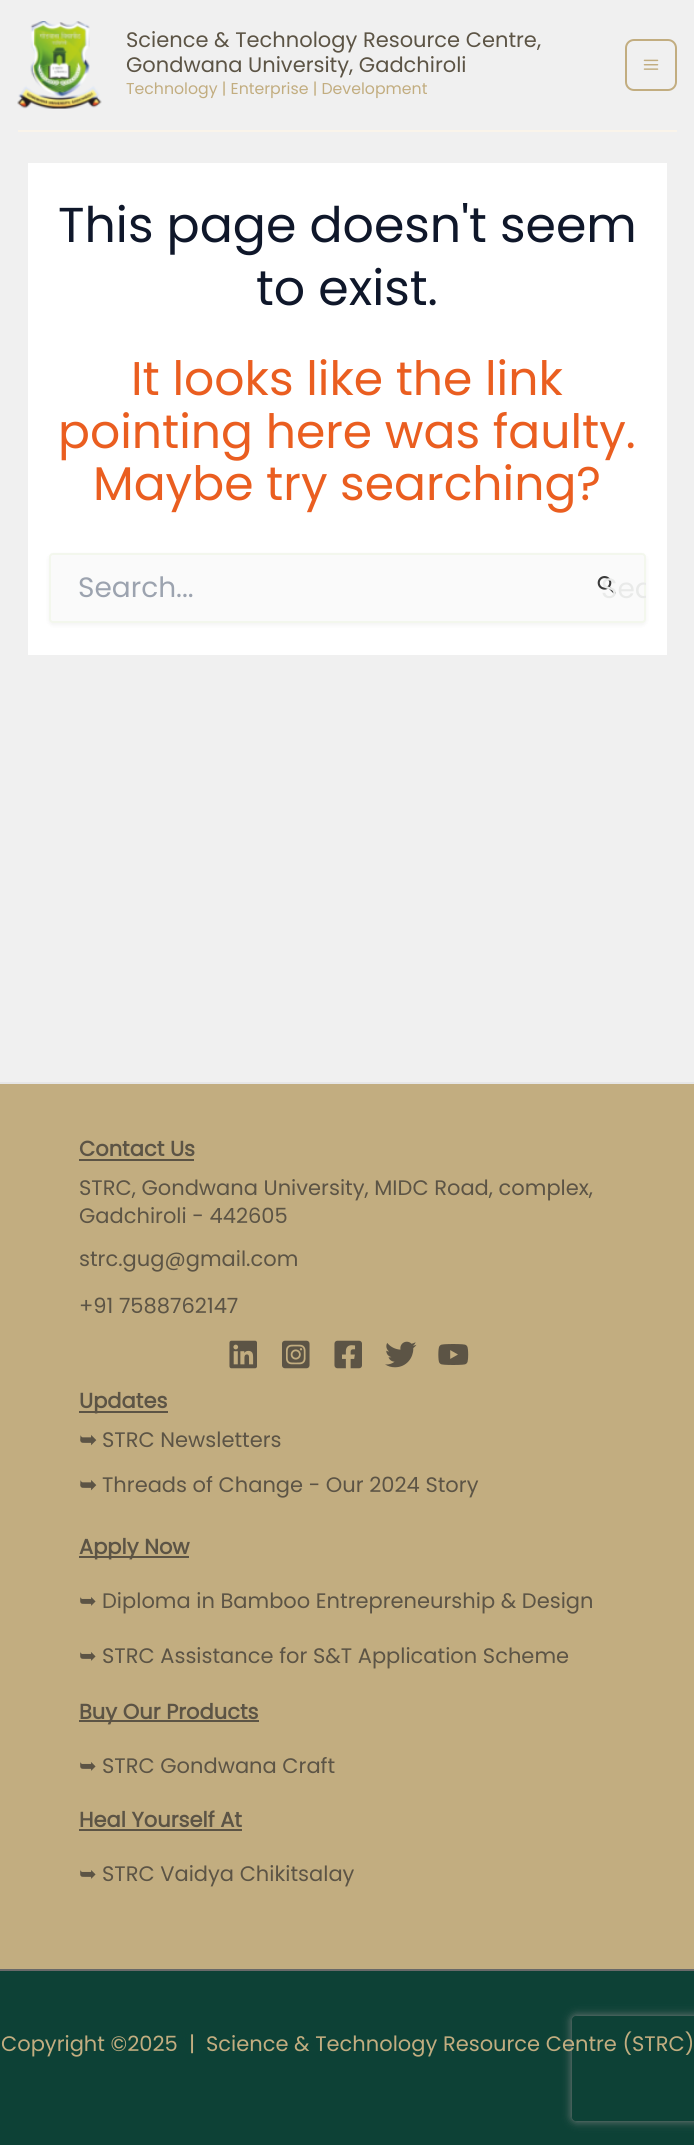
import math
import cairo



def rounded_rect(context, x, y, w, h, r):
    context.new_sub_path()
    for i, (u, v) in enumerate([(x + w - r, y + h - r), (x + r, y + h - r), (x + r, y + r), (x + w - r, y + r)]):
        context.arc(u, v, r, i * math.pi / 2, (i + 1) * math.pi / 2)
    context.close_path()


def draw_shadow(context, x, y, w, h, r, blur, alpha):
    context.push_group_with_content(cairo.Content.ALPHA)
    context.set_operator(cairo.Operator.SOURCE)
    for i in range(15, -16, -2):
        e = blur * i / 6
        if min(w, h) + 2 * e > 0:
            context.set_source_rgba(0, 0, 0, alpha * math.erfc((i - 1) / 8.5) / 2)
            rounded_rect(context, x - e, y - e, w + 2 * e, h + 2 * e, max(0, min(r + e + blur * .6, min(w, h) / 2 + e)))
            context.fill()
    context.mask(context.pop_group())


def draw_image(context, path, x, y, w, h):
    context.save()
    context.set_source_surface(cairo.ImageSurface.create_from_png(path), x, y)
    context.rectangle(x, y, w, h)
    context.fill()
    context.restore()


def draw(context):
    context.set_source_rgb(240 / 255, 240 / 255, 240 / 255)
    context.paint()
    context.set_source_rgb(250 / 255, 244 / 255, 234 / 255)
    context.rectangle(18, 130, 659, 2)
    context.fill()
    draw_image(context, "images/1.png", 17, 21, 85, 88)
    rounded_rect(context, 626, 40, 50, 50, 8)
    context.set_source_rgb(194 / 255, 173 / 255, 128 / 255)
    context.stroke()
    draw_image(context, "images/2.png", 643, 59, 16, 11)
    context.set_source_rgb(1, 1, 1)
    context.rectangle(28, 163, 639, 492)
    context.fill()
    context.set_source_rgb(0, 0, 0)
    draw_shadow(context, 49, 555, 597, 70, 4, 2, 0.05)
    context.set_source_rgb(250 / 255, 250 / 255, 250 / 255)
    rounded_rect(context, 50, 554, 595, 68, 3)
    context.fill_preserve()
    context.set_source_rgb(243 / 255, 247 / 255, 237 / 255)
    context.stroke()
    draw_image(context, "images/3.png", 597, 576, 19, 19)
    context.set_source_rgb(194 / 255, 173 / 255, 128 / 255)
    context.rectangle(0, 1084, 694, 885)
    context.fill()
    context.set_source_rgb(230 / 255, 230 / 255, 230 / 255)
    context.rectangle(0, 1082, 694, 2)
    context.fill()
    context.set_source_rgb(92 / 255, 84 / 255, 69 / 255)
    context.rectangle(79, 1159, 115, 2)
    context.fill()
    draw_image(context, "images/4.png", 229, 1340, 28, 29)
    draw_image(context, "images/5.png", 282, 1340, 28, 29)
    draw_image(context, "images/6.png", 334, 1340, 28, 29)
    draw_image(context, "images/7.png", 385, 1341, 32, 27)
    draw_image(context, "images/8.png", 438, 1344, 31, 21)
    context.rectangle(79, 1411, 89, 2)
    context.fill()
    context.rectangle(79, 1556, 110, 2)
    context.fill()
    context.rectangle(79, 1720, 180, 2)
    context.fill()
    context.rectangle(79, 1829, 163, 2)
    context.fill()
    context.set_source_rgb(13 / 255, 65 / 255, 54 / 255)
    context.rectangle(0, 1971, 694, 174)
    context.fill()
    context.set_source_rgb(105 / 255, 105 / 255, 105 / 255)
    context.rectangle(0, 1969, 694, 2)
    context.fill()
    context.save()
    context.set_fill_rule(cairo.FillRule.EVEN_ODD)
    context.new_path()
    context.move_to(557, 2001)
    context.line_to(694, 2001)
    context.line_to(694, 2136)
    context.line_to(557, 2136)
    context.close_path()
    context.move_to(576, 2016)
    context.line_to(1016, 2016)
    context.curve_to(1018, 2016, 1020, 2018, 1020, 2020)
    context.line_to(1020, 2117)
    context.curve_to(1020, 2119, 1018, 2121, 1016, 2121)
    context.line_to(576, 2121)
    context.curve_to(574, 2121, 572, 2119, 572, 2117)
    context.line_to(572, 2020)
    context.curve_to(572, 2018, 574, 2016, 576, 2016)
    context.close_path()
    context.clip()
    context.set_source_rgb(128 / 255, 128 / 255, 128 / 255)
    draw_shadow(context, 572, 2016, 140, 105, 4, 4.5, 1)
    context.restore()
    context.select_font_face("Poppins")
    context.set_font_size(21)
    context.set_source_rgb(92 / 255, 84 / 255, 69 / 255)
    context.move_to(126, 47)
    context.show_text("Science & Technology Resource Centre,")
    context.move_to(126, 72)
    context.show_text("Gondwana University, Gadchiroli")
    context.set_font_size(15.75)
    context.set_source_rgb(194 / 255, 173 / 255, 128 / 255)
    context.move_to(126, 94)
    context.show_text("Technology | Enterprise | Development")
    context.set_font_size(49)
    context.set_source_rgb(15 / 255, 23 / 255, 42 / 255)
    context.move_to(58, 242)
    context.show_text("This page doesn't seem")
    context.move_to(256, 305)
    context.show_text("to exist.")
    context.set_font_size(47.25)
    context.set_source_rgb(234 / 255, 94 / 255, 32 / 255)
    context.move_to(131, 395)
    context.show_text("It looks like the link")
    context.move_to(58, 448)
    context.show_text("pointing here was faulty.")
    context.move_to(93, 500)
    context.show_text("Maybe try searching?")
    context.set_font_size(28)
    context.set_source_rgb(156 / 255, 163 / 255, 175 / 255)
    context.move_to(78, 597)
    context.show_text("Search...")
    context.save()
    rounded_rect(context, 567, 553, 79, 74, 4)
    context.clip()
    context.set_source_rgb(233 / 255, 234 / 255, 233 / 255)
    context.move_to(601, 598)
    context.show_text("Sea")
    context.restore()
    context.select_font_face("Poppins", cairo.FontSlant.NORMAL, cairo.FontWeight.BOLD)
    context.set_font_size(21)
    context.set_source_rgb(92 / 255, 84 / 255, 69 / 255)
    context.move_to(79, 1156)
    context.show_text("Contact Us")
    context.select_font_face("Poppins")
    context.move_to(79, 1195)
    context.show_text("STRC, Gondwana University, MIDC Road, complex,")
    context.move_to(79, 1223)
    context.show_text("Gadchiroli - 442605")
    context.move_to(79, 1266)
    context.show_text("strc.gug@gmail.com")
    context.move_to(79, 1313)
    context.show_text("+91 7588762147")
    context.select_font_face("Poppins", cairo.FontSlant.NORMAL, cairo.FontWeight.BOLD)
    context.move_to(79, 1408)
    context.show_text("Updates")
    context.select_font_face("DejaVu Sans", cairo.FontSlant.NORMAL, cairo.FontWeight.BOLD)
    context.move_to(79, 1447)
    context.show_text("➥")
    context.select_font_face("Poppins")
    context.move_to(102, 1447)
    context.show_text("STRC Newsletters")
    context.select_font_face("DejaVu Sans", cairo.FontSlant.NORMAL, cairo.FontWeight.BOLD)
    context.move_to(79, 1492)
    context.show_text("➥")
    context.select_font_face("Poppins")
    context.move_to(102, 1492)
    context.show_text("Threads of Change - Our 2024 Story")
    context.select_font_face("Poppins", cairo.FontSlant.NORMAL, cairo.FontWeight.BOLD)
    context.move_to(79, 1554)
    context.show_text("Apply Now")
    context.select_font_face("DejaVu Sans")
    context.move_to(79, 1608)
    context.show_text("➥")
    context.select_font_face("Poppins")
    context.move_to(102, 1608)
    context.show_text("Diploma in Bamboo Entrepreneurship & Design")
    context.select_font_face("DejaVu Sans")
    context.move_to(79, 1663)
    context.show_text("➥")
    context.select_font_face("Poppins")
    context.move_to(102, 1663)
    context.show_text("STRC Assistance for S&T Application Scheme")
    context.select_font_face("Poppins", cairo.FontSlant.NORMAL, cairo.FontWeight.BOLD)
    context.move_to(79, 1719)
    context.show_text("Buy Our Products")
    context.select_font_face("DejaVu Sans")
    context.move_to(79, 1773)
    context.show_text("➥")
    context.select_font_face("Poppins")
    context.move_to(102, 1773)
    context.show_text("STRC Gondwana Craft")
    context.select_font_face("Poppins", cairo.FontSlant.NORMAL, cairo.FontWeight.BOLD)
    context.move_to(79, 1827)
    context.show_text("Heal Yourself At")
    context.select_font_face("DejaVu Sans")
    context.move_to(79, 1881)
    context.show_text("➥")
    context.select_font_face("Poppins")
    context.move_to(102, 1881)
    context.show_text("STRC Vaidya Chikitsalay")
    context.set_source_rgb(194 / 255, 173 / 255, 128 / 255)
    context.move_to(1, 2051)
    context.show_text("Copyright ©2025  |")
    context.move_to(206, 2051)
    context.show_text("Science & Technology Resource Centre (STRC)")


surface = cairo.ImageSurface(cairo.Format.RGB24, 694, 2145)
context = cairo.Context(surface)
options = cairo.FontOptions()
options.set_hint_metrics(cairo.HintMetrics.OFF)
options.set_hint_style(cairo.HintStyle.NONE)
context.set_font_options(options)
context.set_miter_limit(4)
draw(context)
surface.write_to_png("out.png")
